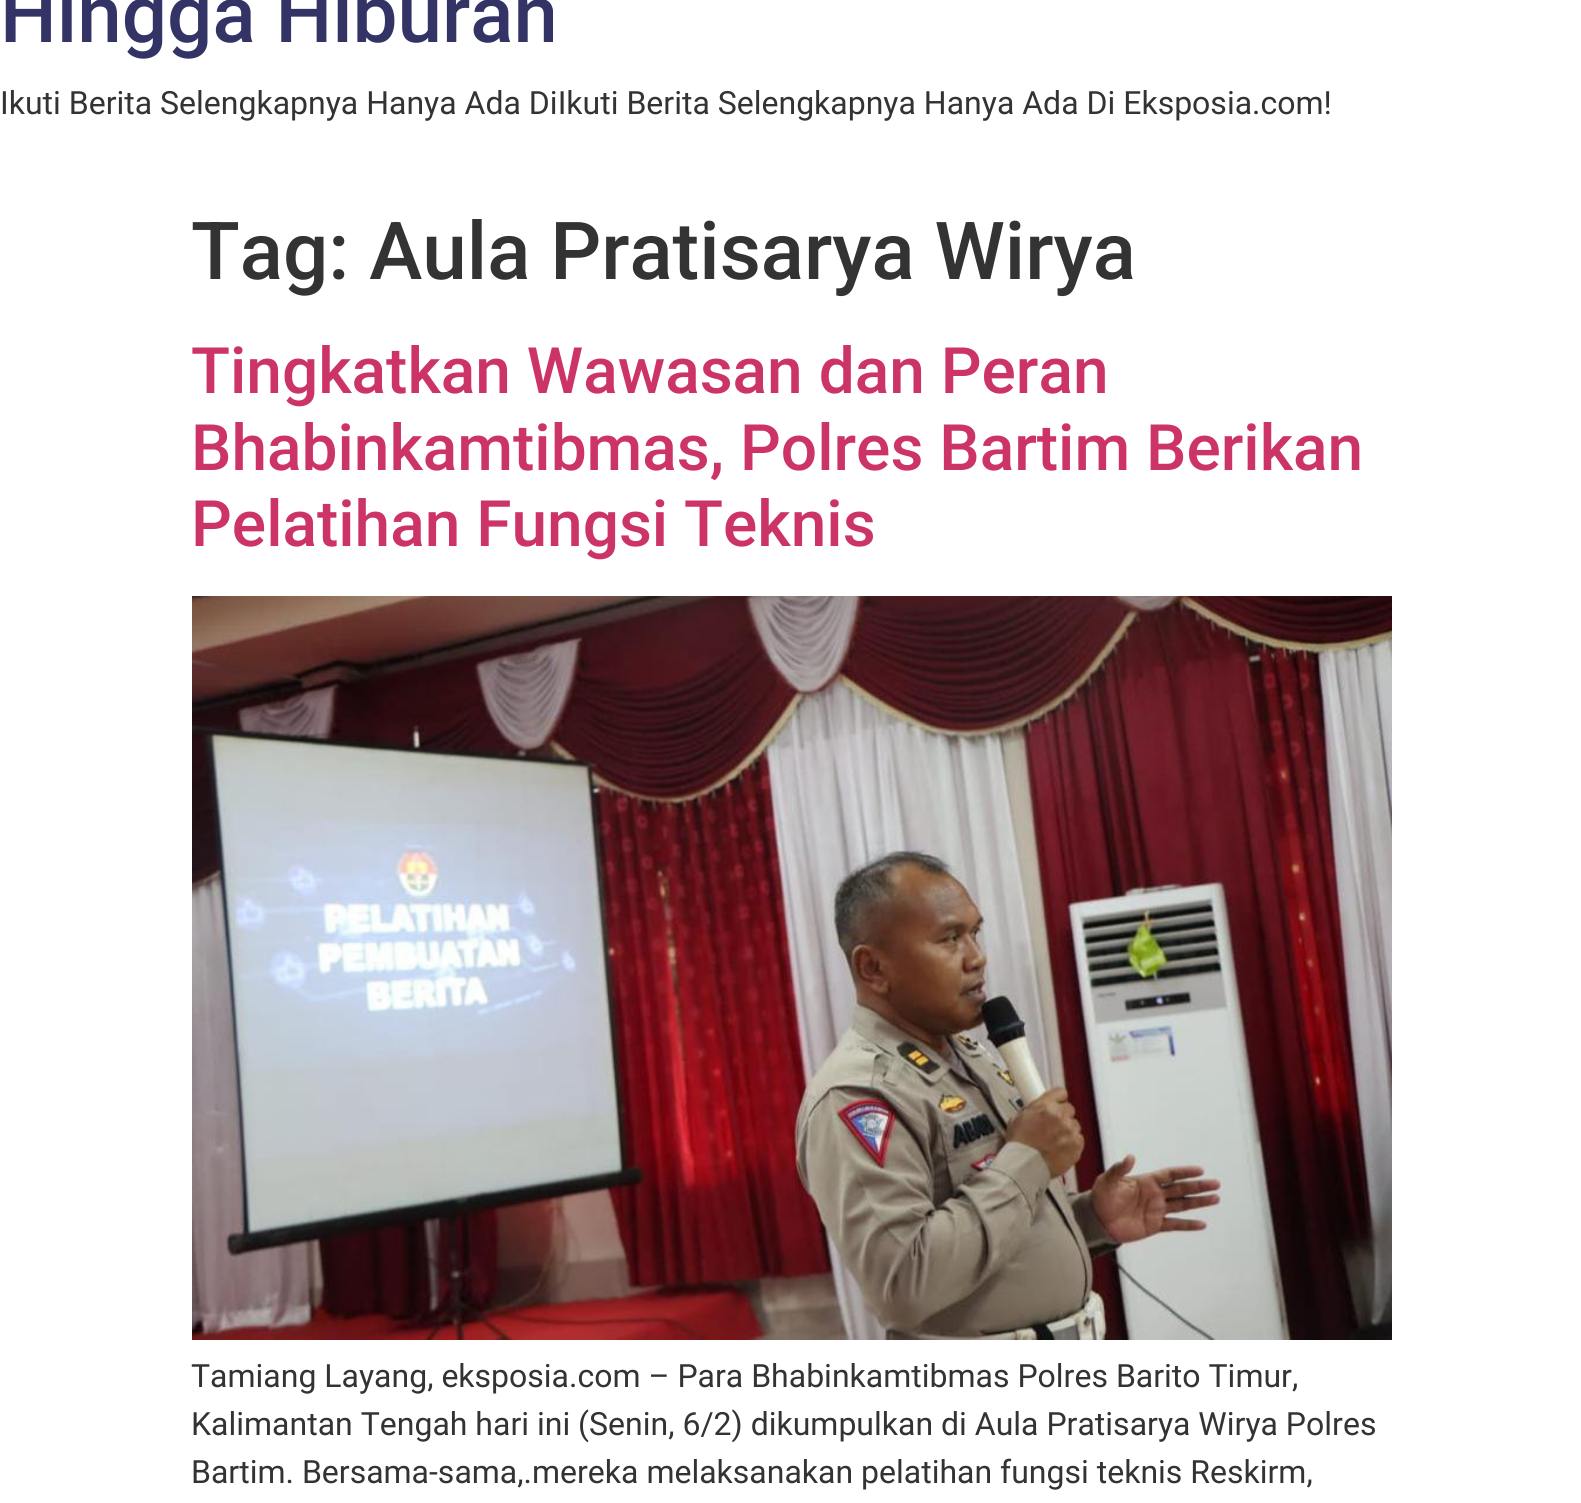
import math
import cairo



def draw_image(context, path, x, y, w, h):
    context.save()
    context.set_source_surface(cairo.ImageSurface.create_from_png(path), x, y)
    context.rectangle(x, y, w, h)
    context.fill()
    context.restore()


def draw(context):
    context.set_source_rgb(1, 1, 1)
    context.paint()
    draw_image(context, "images/1.png", 192, 596, 1200, 744)
    context.select_font_face("Roboto Medium")
    context.set_font_size(80)
    context.set_source_rgb(51 / 255, 51 / 255, 102 / 255)
    context.move_to(0, 42)
    context.show_text("Hingga Hiburan")
    context.select_font_face("Roboto")
    context.set_font_size(32)
    context.set_source_rgb(51 / 255, 51 / 255, 51 / 255)
    context.move_to(0, 114)
    context.show_text("Ikuti Berita Selengkapnya Hanya Ada DiIkuti Berita Selengkapnya Hanya Ada Di Eksposia.com!")
    context.select_font_face("Roboto Medium")
    context.set_font_size(80)
    context.move_to(191, 279)
    context.show_text("Tag: Aula Pratisarya Wirya")
    context.set_font_size(64)
    context.set_source_rgb(204 / 255, 51 / 255, 102 / 255)
    context.move_to(191, 393)
    context.show_text("Tingkatkan Wawasan dan Peran")
    context.move_to(191, 470)
    context.show_text("Bhabinkamtibmas, Polres Bartim Berikan")
    context.move_to(191, 546)
    context.show_text("Pelatihan Fungsi Teknis")
    context.select_font_face("Roboto")
    context.set_font_size(32)
    context.set_source_rgb(51 / 255, 51 / 255, 51 / 255)
    context.move_to(191, 1387)
    context.show_text("Tamiang Layang, eksposia.com – Para Bhabinkamtibmas Polres Barito Timur,")
    context.move_to(191, 1435)
    context.show_text("Kalimantan Tengah hari ini (Senin, 6/2) dikumpulkan di Aula Pratisarya Wirya Polres")
    context.move_to(191, 1483)
    context.show_text("Bartim. Bersama-sama,.mereka melaksanakan pelatihan fungsi teknis Reskirm,")


surface = cairo.ImageSurface(cairo.Format.RGB24, 1581, 1503)
context = cairo.Context(surface)
options = cairo.FontOptions()
options.set_hint_metrics(cairo.HintMetrics.OFF)
options.set_hint_style(cairo.HintStyle.NONE)
context.set_font_options(options)
context.set_miter_limit(4)
draw(context)
surface.write_to_png("out.png")
